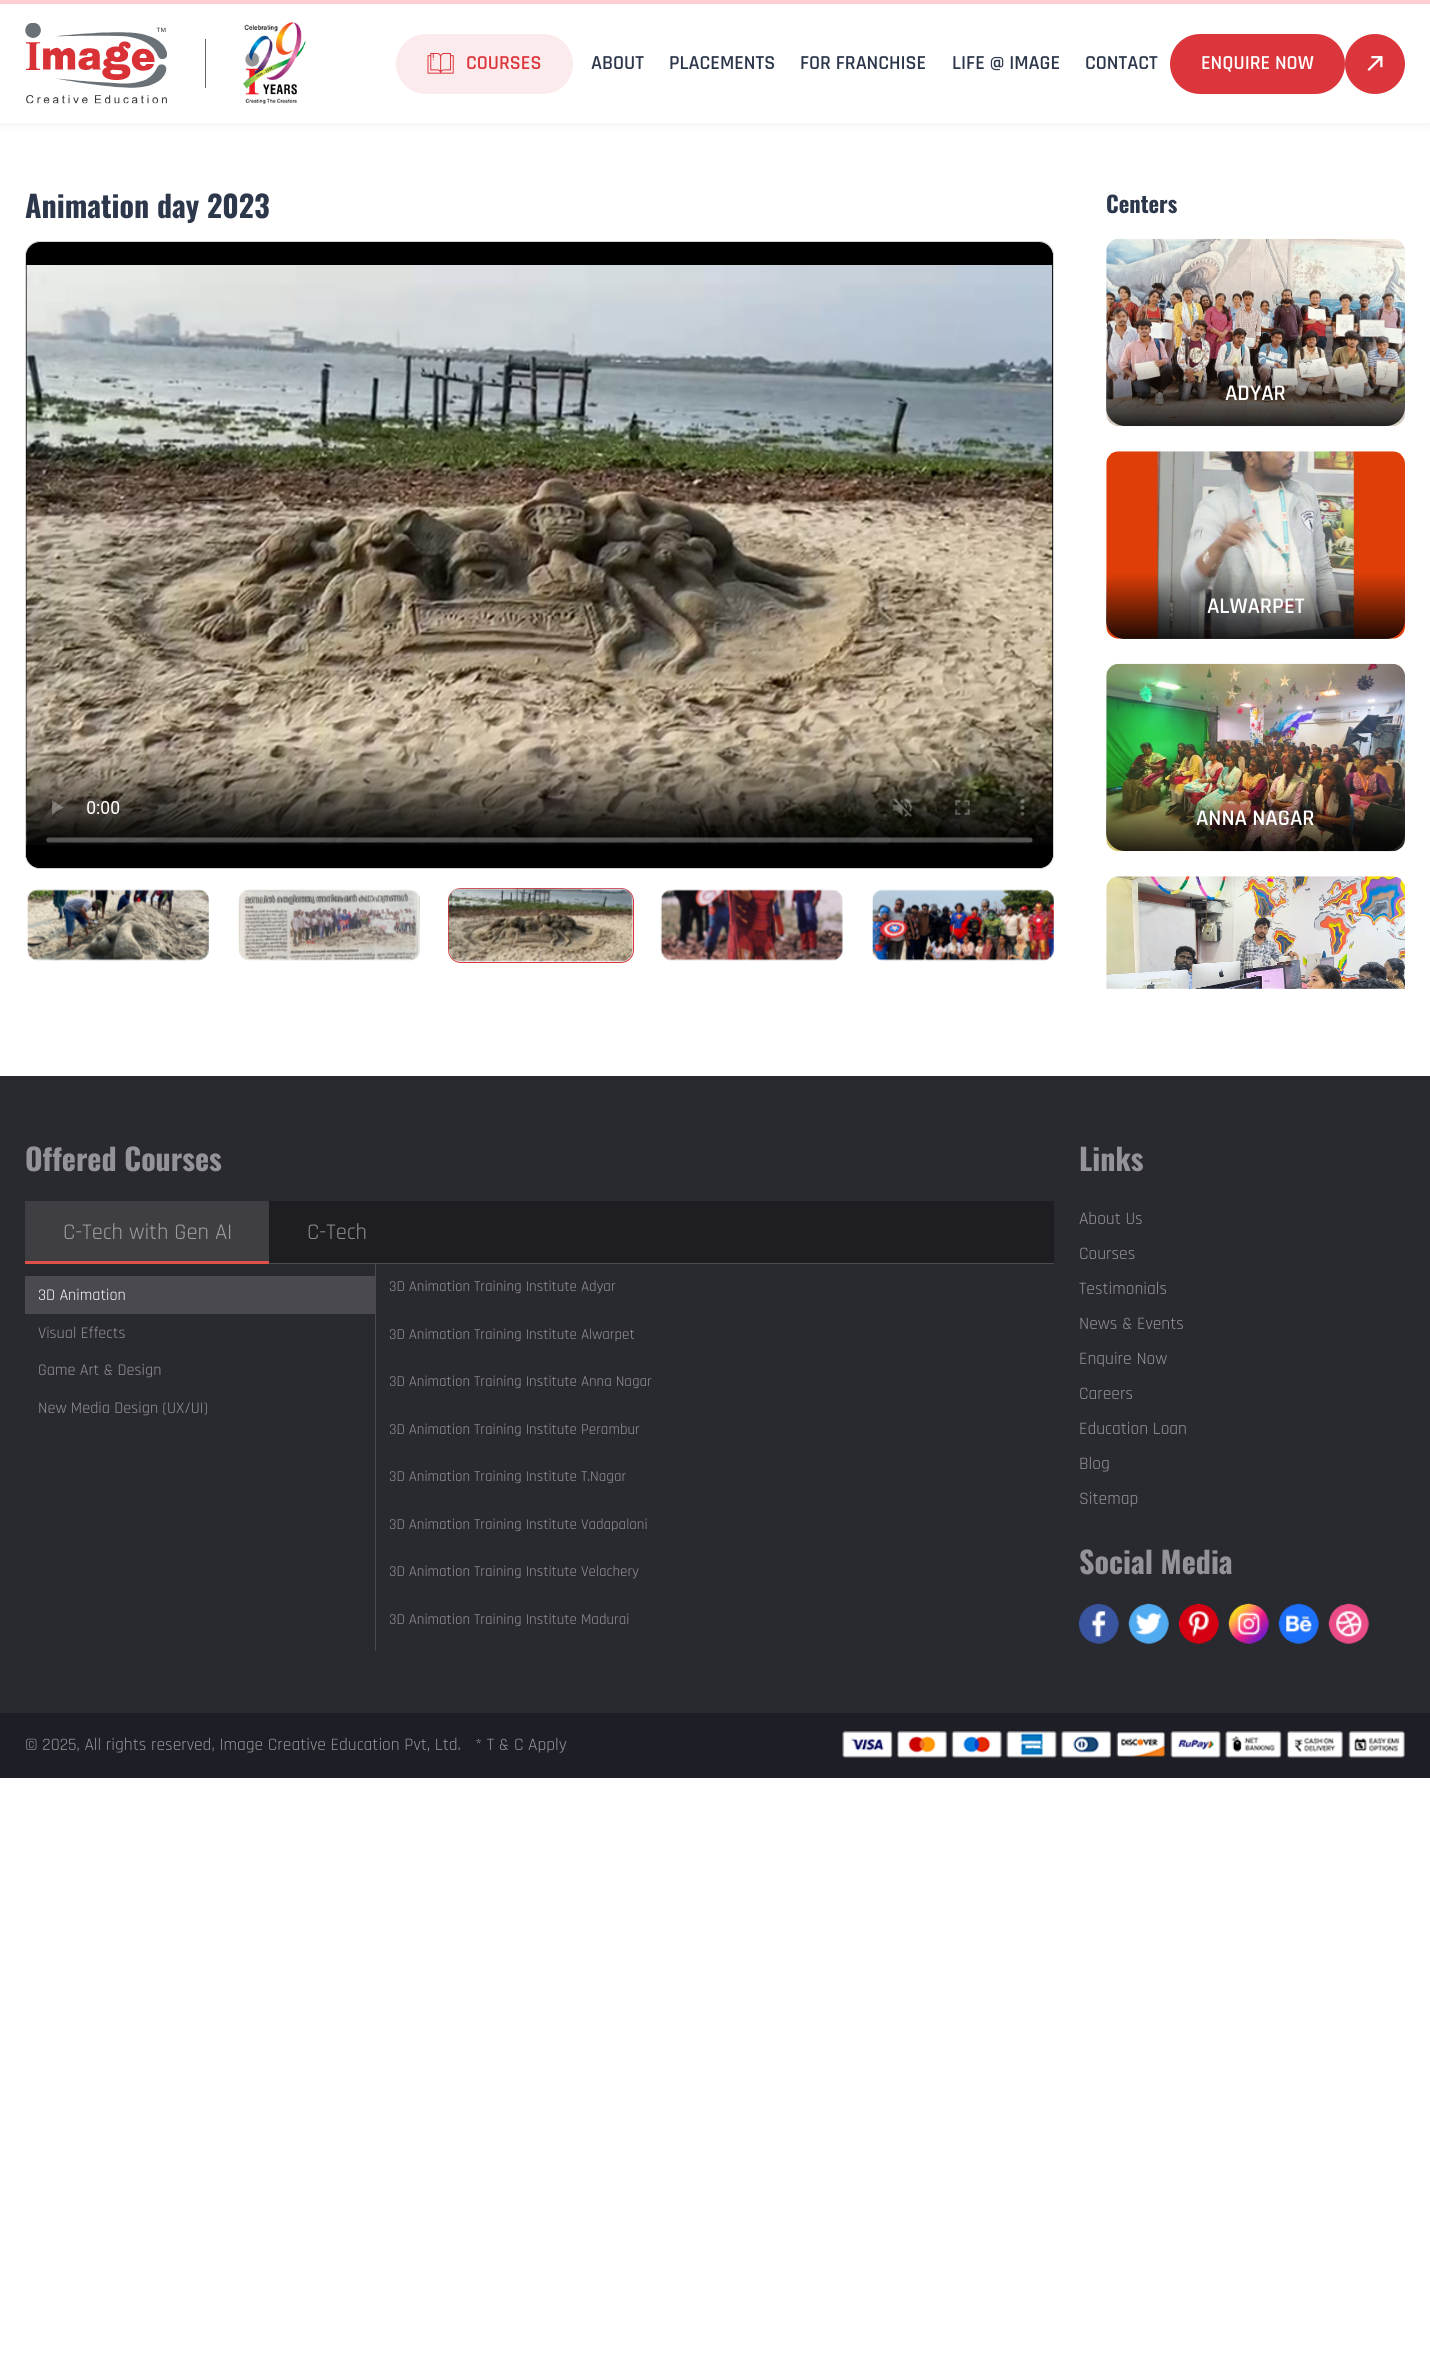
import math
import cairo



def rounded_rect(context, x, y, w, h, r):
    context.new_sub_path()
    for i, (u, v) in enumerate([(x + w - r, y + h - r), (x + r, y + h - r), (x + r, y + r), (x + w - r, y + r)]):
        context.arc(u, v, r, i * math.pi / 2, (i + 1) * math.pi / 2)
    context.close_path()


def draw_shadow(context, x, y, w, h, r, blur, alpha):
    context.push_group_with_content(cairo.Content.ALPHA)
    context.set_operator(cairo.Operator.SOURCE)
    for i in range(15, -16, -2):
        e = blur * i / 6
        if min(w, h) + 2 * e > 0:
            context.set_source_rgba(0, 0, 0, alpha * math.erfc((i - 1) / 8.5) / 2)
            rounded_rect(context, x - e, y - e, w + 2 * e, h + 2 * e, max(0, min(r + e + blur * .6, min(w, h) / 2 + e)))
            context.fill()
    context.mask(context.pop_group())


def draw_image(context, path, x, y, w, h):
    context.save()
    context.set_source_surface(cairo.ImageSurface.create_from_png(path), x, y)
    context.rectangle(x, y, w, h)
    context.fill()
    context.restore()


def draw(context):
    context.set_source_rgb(1, 1, 1)
    context.paint()
    context.set_source_rgb(0, 0, 0)
    draw_shadow(context, 0, 3, 1430, 122, 0, 5, 0.05)
    context.set_source_rgb(1, 1, 1)
    context.rectangle(0, 4, 1430, 119)
    context.fill()
    context.set_source_rgb(254 / 255, 206 / 255, 212 / 255)
    context.rectangle(0, 0, 1430, 4)
    context.fill()
    draw_image(context, "images/1.png", 25, 23, 143, 81)
    context.set_source_rgb(102 / 255, 102 / 255, 102 / 255)
    context.rectangle(205, 39, 1, 49)
    context.fill()
    draw_image(context, "images/2.png", 243, 22, 63, 82)
    context.set_source_rgb(252 / 255, 235 / 255, 236 / 255)
    rounded_rect(context, 396, 34, 177, 60, 30)
    context.fill()
    draw_image(context, "images/3.png", 427, 53, 27, 21)
    context.set_source_rgb(220 / 255, 54 / 255, 61 / 255)
    rounded_rect(context, 1170, 34, 175, 60, 30)
    context.fill()
    context.arc(1375, 64, 30, 0, 2 * math.pi)
    context.fill()
    draw_image(context, "images/4.png", 1367, 56, 16, 15)
    context.set_source_rgb(0, 0, 0)
    rounded_rect(context, 25.5, 241.5, 1028, 627, 14.5)
    context.fill_preserve()
    context.set_source_rgb(213 / 255, 213 / 255, 213 / 255)
    context.set_line_width(1)
    context.stroke()
    context.set_source_rgb(0, 0, 0)
    rounded_rect(context, 26, 243, 1027, 625, 14)
    context.fill()
    draw_image(context, "images/5.png", 26, 265, 1027, 596)
    draw_image(context, "images/6.png", 27, 889, 182, 72)
    draw_image(context, "images/7.png", 238, 889, 182, 72)
    rounded_rect(context, 448.5, 888.5, 185, 74, 12.5)
    context.set_source_rgb(220 / 255, 54 / 255, 61 / 255)
    context.stroke()
    draw_image(context, "images/8.png", 448, 888, 185, 74)
    draw_image(context, "images/9.png", 660, 889, 183, 72)
    draw_image(context, "images/10.png", 872, 889, 182, 72)
    draw_image(context, "images/11.png", 1106, 238, 299, 189)
    gradient = cairo.LinearGradient(1256, 426, 1256, 239)
    gradient.add_color_stop_rgba(0, 0, 0, 0, 0.85)
    gradient.add_color_stop_rgba(0.35, 0, 0, 0, 0)
    context.set_source(gradient)
    rounded_rect(context, 1106, 239, 299, 187, 19)
    context.fill()
    draw_image(context, "images/12.png", 1106, 451, 299, 188)
    gradient = cairo.LinearGradient(1256, 639, 1256, 451)
    gradient.add_color_stop_rgba(0, 0, 0, 0, 0.85)
    gradient.add_color_stop_rgba(0.35, 0, 0, 0, 0)
    context.set_source(gradient)
    rounded_rect(context, 1106, 451, 299, 188, 19)
    context.fill()
    draw_image(context, "images/13.png", 1106, 663, 299, 189)
    gradient = cairo.LinearGradient(1256, 851, 1256, 664)
    gradient.add_color_stop_rgba(0, 0, 0, 0, 0.85)
    gradient.add_color_stop_rgba(0.35, 0, 0, 0, 0)
    context.set_source(gradient)
    rounded_rect(context, 1106, 664, 299, 187, 19)
    context.fill()
    draw_image(context, "images/14.png", 1106, 876, 299, 113)
    context.set_source_rgb(41 / 255, 41 / 255, 48 / 255)
    context.rectangle(0, 1076, 1430, 637)
    context.fill()
    context.set_source_rgb(29 / 255, 29 / 255, 34 / 255)
    context.rectangle(269, 1201, 785, 62)
    context.fill()
    context.set_source_rgb(63 / 255, 63 / 255, 67 / 255)
    context.rectangle(25, 1201, 244, 60)
    context.fill()
    context.set_source_rgb(75 / 255, 75 / 255, 75 / 255)
    context.rectangle(269, 1263, 785, 1)
    context.fill()
    context.set_source_rgb(223 / 255, 80 / 255, 72 / 255)
    context.rectangle(25, 1261, 244, 3)
    context.fill()
    context.set_source_rgb(73 / 255, 73 / 255, 79 / 255)
    context.rectangle(25, 1276, 350, 38)
    context.fill()
    context.set_source_rgb(75 / 255, 75 / 255, 75 / 255)
    context.rectangle(375, 1264, 1, 387)
    context.fill()
    draw_image(context, "images/15.png", 1078, 1603, 41, 41)
    draw_image(context, "images/16.png", 1128, 1603, 41, 41)
    draw_image(context, "images/17.png", 1178, 1603, 41, 41)
    draw_image(context, "images/18.png", 1228, 1603, 41, 41)
    draw_image(context, "images/19.png", 1278, 1603, 41, 41)
    draw_image(context, "images/20.png", 1328, 1603, 41, 41)
    context.set_source_rgb(30 / 255, 30 / 255, 38 / 255)
    context.rectangle(0, 1713, 1430, 65)
    context.fill()
    draw_image(context, "images/21.png", 842, 1731, 563, 27)
    context.select_font_face("Rajdhani SemiBold")
    context.set_font_size(20)
    context.set_source_rgb(220 / 255, 54 / 255, 61 / 255)
    context.move_to(466, 69)
    context.show_text("COURSES")
    context.set_source_rgb(44 / 255, 55 / 255, 75 / 255)
    context.move_to(591, 69)
    context.show_text("ABOUT")
    context.move_to(669, 69)
    context.show_text("PLACEMENTS")
    context.move_to(800, 69)
    context.show_text("FOR FRANCHISE")
    context.move_to(952, 69)
    context.show_text("LIFE @ IMAGE")
    context.move_to(1085, 69)
    context.show_text("CONTACT")
    context.set_source_rgb(1, 1, 1)
    context.move_to(1201, 69)
    context.show_text("ENQUIRE NOW")
    context.select_font_face("Oswald", cairo.FontSlant.NORMAL, cairo.FontWeight.BOLD)
    context.set_font_size(30)
    context.set_source_rgb(44 / 255, 55 / 255, 75 / 255)
    context.move_to(25, 218)
    context.show_text("Animation day 2023")
    context.set_font_size(22.5)
    context.move_to(1106, 213)
    context.show_text("Centers")
    context.select_font_face("Rajdhani SemiBold")
    context.set_source_rgb(1, 1, 1)
    context.move_to(1225, 400)
    context.show_text("ADYAR")
    context.move_to(1207, 613)
    context.show_text("ALWARPET")
    context.move_to(1196, 825)
    context.show_text("ANNA NAGAR")
    context.select_font_face("Oswald", cairo.FontSlant.NORMAL, cairo.FontWeight.BOLD)
    context.set_font_size(30)
    context.set_source_rgb(148 / 255, 148 / 255, 152 / 255)
    context.move_to(25, 1171)
    context.show_text("Offered Courses")
    context.select_font_face("Rajdhani")
    context.set_font_size(22.5)
    context.set_source_rgb(159 / 255, 159 / 255, 161 / 255)
    context.move_to(63, 1239)
    context.show_text("C-Tech with Gen AI")
    context.set_source_rgb(142 / 255, 142 / 255, 145 / 255)
    context.move_to(307, 1239)
    context.show_text("C-Tech")
    context.set_font_size(16.25)
    context.set_source_rgb(1, 1, 1)
    context.move_to(38, 1300)
    context.show_text("3D Animation")
    context.set_source_rgb(148 / 255, 148 / 255, 152 / 255)
    context.move_to(38, 1338)
    context.show_text("Visual Effects")
    context.move_to(38, 1375)
    context.show_text("Game Art & Design")
    context.move_to(38, 1413)
    context.show_text("New Media Design (UX/UI)")
    context.set_font_size(15)
    context.move_to(389, 1291)
    context.show_text("3D Animation Training Institute Adyar")
    context.move_to(389, 1339)
    context.show_text("3D Animation Training Institute Alwarpet")
    context.move_to(389, 1386)
    context.show_text("3D Animation Training Institute Anna Nagar")
    context.move_to(389, 1434)
    context.show_text("3D Animation Training Institute Perambur")
    context.move_to(389, 1481)
    context.show_text("3D Animation Training Institute T.Nagar")
    context.move_to(389, 1529)
    context.show_text("3D Animation Training Institute Vadapalani")
    context.move_to(389, 1576)
    context.show_text("3D Animation Training Institute Velachery")
    context.move_to(389, 1624)
    context.show_text("3D Animation Training Institute Madurai")
    context.select_font_face("Oswald", cairo.FontSlant.NORMAL, cairo.FontWeight.BOLD)
    context.set_font_size(30)
    context.move_to(1079, 1171)
    context.show_text("Links")
    context.select_font_face("Rajdhani")
    context.set_font_size(17.5)
    context.move_to(1079, 1224)
    context.show_text("About Us")
    context.move_to(1079, 1259)
    context.show_text("Courses")
    context.move_to(1079, 1294)
    context.show_text("Testimonials")
    context.move_to(1079, 1329)
    context.show_text("News & Events")
    context.move_to(1079, 1364)
    context.show_text("Enquire Now")
    context.move_to(1079, 1399)
    context.show_text("Careers")
    context.move_to(1079, 1434)
    context.show_text("Education Loan")
    context.move_to(1079, 1469)
    context.show_text("Blog")
    context.move_to(1079, 1504)
    context.show_text("Sitemap")
    context.select_font_face("Oswald", cairo.FontSlant.NORMAL, cairo.FontWeight.BOLD)
    context.set_font_size(30)
    context.move_to(1079, 1574)
    context.show_text("Social Media")
    context.select_font_face("Rajdhani")
    context.set_font_size(17.5)
    context.move_to(25, 1750)
    context.show_text("© 2025, All rights reserved, Image Creative Education Pvt, Ltd.")
    context.move_to(475, 1750)
    context.show_text("* T & C Apply")


surface = cairo.ImageSurface(cairo.Format.RGB24, 1430, 2357)
context = cairo.Context(surface)
options = cairo.FontOptions()
options.set_hint_metrics(cairo.HintMetrics.OFF)
options.set_hint_style(cairo.HintStyle.NONE)
context.set_font_options(options)
context.set_miter_limit(4)
draw(context)
surface.write_to_png("out.png")
